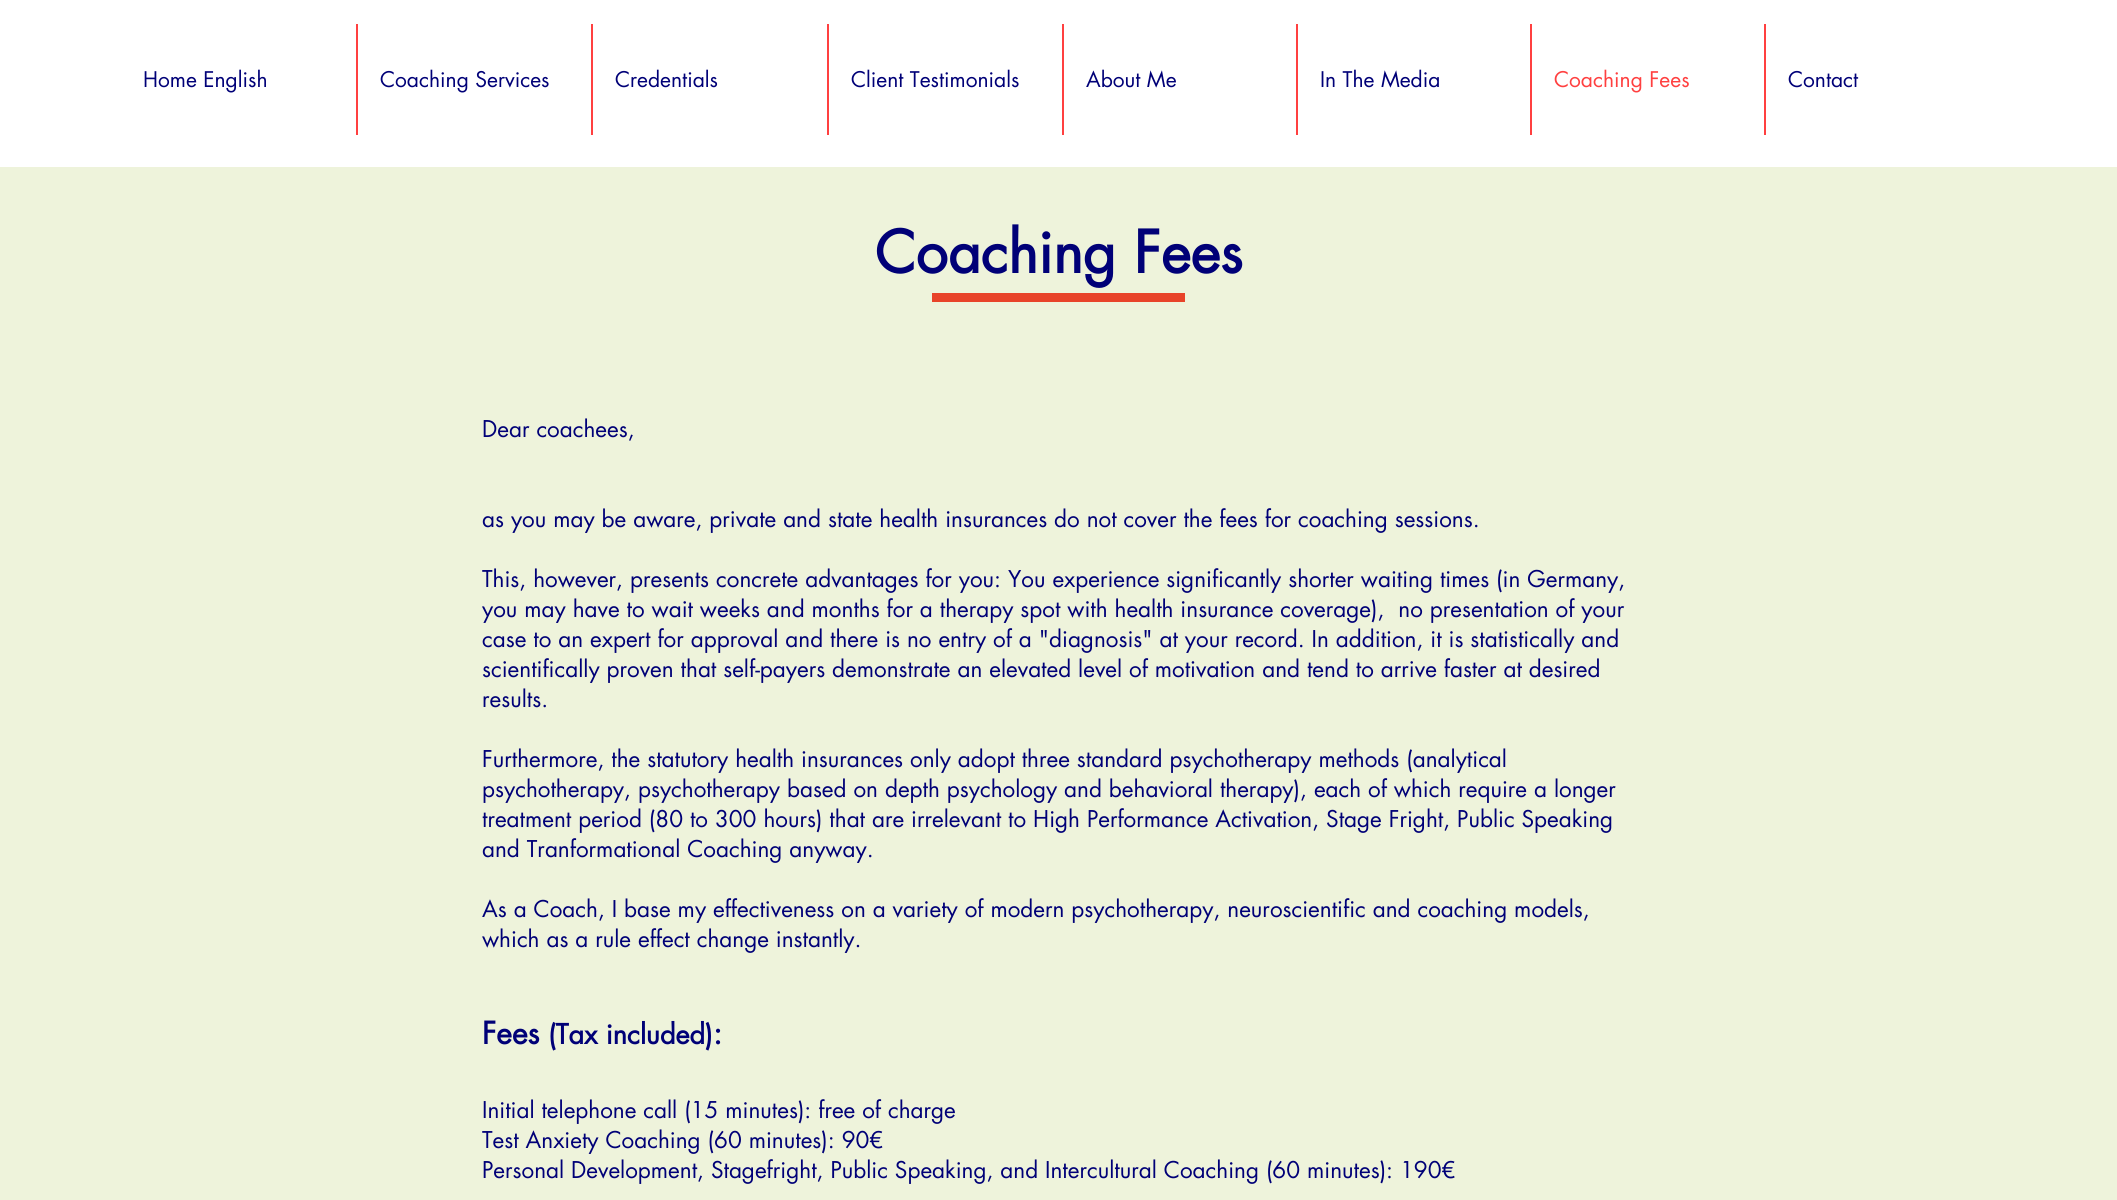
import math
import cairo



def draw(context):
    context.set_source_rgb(238 / 255, 243 / 255, 219 / 255)
    context.paint()
    context.set_source_rgb(1, 1, 1)
    context.rectangle(0, 0, 2117, 167)
    context.fill()
    context.set_source_rgb(1, 64 / 255, 64 / 255)
    context.rectangle(356, 24, 2, 111)
    context.fill()
    context.rectangle(591, 24, 2, 111)
    context.fill()
    context.rectangle(827, 24, 2, 111)
    context.fill()
    context.rectangle(1062, 24, 2, 111)
    context.fill()
    context.rectangle(1296, 24, 2, 111)
    context.fill()
    context.rectangle(1530, 24, 2, 111)
    context.fill()
    context.rectangle(1764, 24, 2, 111)
    context.fill()
    context.set_source_rgb(232 / 255, 67 / 255, 41 / 255)
    context.rectangle(932, 293, 253, 9)
    context.fill()
    context.select_font_face("futura")
    context.set_font_size(21)
    context.set_source_rgb(0, 0, 119 / 255)
    context.move_to(143, 87)
    context.show_text("Home English")
    context.move_to(380, 87)
    context.show_text("Coaching Services")
    context.move_to(615, 87)
    context.show_text("Credentials")
    context.move_to(851, 87)
    context.show_text("Client Testimonials")
    context.move_to(1086, 87)
    context.show_text("About Me")
    context.move_to(1320, 87)
    context.show_text("In The Media")
    context.set_source_rgb(1, 64 / 255, 64 / 255)
    context.move_to(1554, 87)
    context.show_text("Coaching Fees")
    context.set_source_rgb(0, 0, 119 / 255)
    context.move_to(1788, 87)
    context.show_text("Contact")
    context.select_font_face("futura", cairo.FontSlant.NORMAL, cairo.FontWeight.BOLD)
    context.set_font_size(57)
    context.move_to(875, 273)
    context.show_text("Coaching Fees")
    context.select_font_face("futura")
    context.set_font_size(22.5)
    context.move_to(482, 437)
    context.show_text("Dear coachees,")
    context.move_to(482, 527)
    context.show_text("as you may be aware, private and state health insurances do not cover the fees for coaching sessions.")
    context.move_to(482, 587)
    context.show_text("This, however, presents concrete advantages for you: You experience significantly shorter waiting times (in Germany,")
    context.move_to(482, 617)
    context.show_text("you may have to wait weeks and months for a therapy spot with health insurance coverage),  no presentation of your")
    context.move_to(482, 647)
    context.show_text("case to an expert for approval and there is no entry of a \"diagnosis\" at your record. In addition, it is statistically and")
    context.move_to(482, 677)
    context.show_text("scientifically proven that self-payers demonstrate an elevated level of motivation and tend to arrive faster at desired")
    context.move_to(482, 707)
    context.show_text("results.")
    context.move_to(482, 767)
    context.show_text("Furthermore, the statutory health insurances only adopt three standard psychotherapy methods (analytical")
    context.move_to(482, 797)
    context.show_text("psychotherapy, psychotherapy based on depth psychology and behavioral therapy), each of which require a longer")
    context.move_to(482, 827)
    context.show_text("treatment period (80 to 300 hours) that are irrelevant to High Performance Activation, Stage Fright, Public Speaking")
    context.move_to(482, 857)
    context.show_text("and Tranformational Coaching anyway.")
    context.move_to(482, 917)
    context.show_text("As a Coach, I base my effectiveness on a variety of modern psychotherapy, neuroscientific and coaching models,")
    context.move_to(482, 947)
    context.show_text("which as a rule effect change instantly.")
    context.select_font_face("futura", cairo.FontSlant.NORMAL, cairo.FontWeight.BOLD)
    context.set_font_size(30)
    context.move_to(482, 1044)
    context.show_text("Fees")
    context.set_font_size(27)
    context.move_to(548, 1044)
    context.show_text("(Tax included)")
    context.set_font_size(30)
    context.move_to(713, 1044)
    context.show_text(":")
    context.select_font_face("futura")
    context.set_font_size(22.5)
    context.move_to(482, 1118)
    context.show_text("Initial telephone call (15 minutes): free of charge")
    context.move_to(482, 1148)
    context.show_text("Test Anxiety Coaching (60 minutes): 90€")
    context.move_to(482, 1178)
    context.show_text("Personal Development, Stagefright, Public Speaking, and Intercultural Coaching (60 minutes): 190€")


surface = cairo.ImageSurface(cairo.Format.RGB24, 2117, 1200)
context = cairo.Context(surface)
options = cairo.FontOptions()
options.set_hint_metrics(cairo.HintMetrics.OFF)
options.set_hint_style(cairo.HintStyle.NONE)
context.set_font_options(options)
context.set_miter_limit(4)
draw(context)
surface.write_to_png("out.png")
